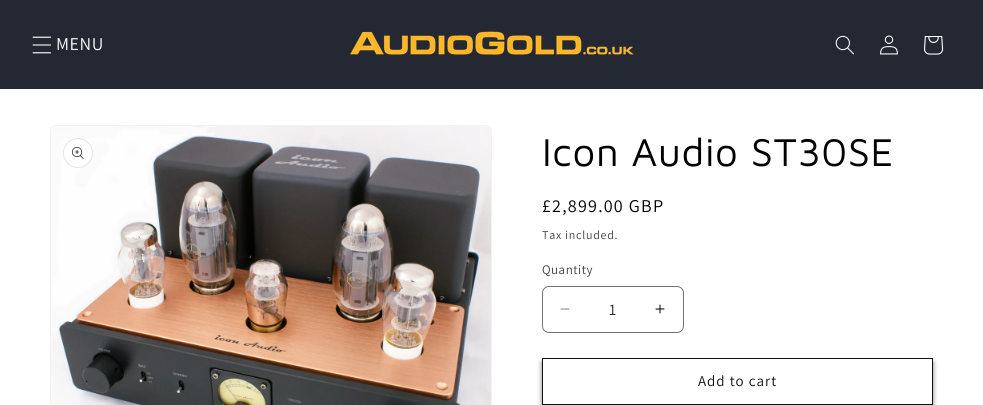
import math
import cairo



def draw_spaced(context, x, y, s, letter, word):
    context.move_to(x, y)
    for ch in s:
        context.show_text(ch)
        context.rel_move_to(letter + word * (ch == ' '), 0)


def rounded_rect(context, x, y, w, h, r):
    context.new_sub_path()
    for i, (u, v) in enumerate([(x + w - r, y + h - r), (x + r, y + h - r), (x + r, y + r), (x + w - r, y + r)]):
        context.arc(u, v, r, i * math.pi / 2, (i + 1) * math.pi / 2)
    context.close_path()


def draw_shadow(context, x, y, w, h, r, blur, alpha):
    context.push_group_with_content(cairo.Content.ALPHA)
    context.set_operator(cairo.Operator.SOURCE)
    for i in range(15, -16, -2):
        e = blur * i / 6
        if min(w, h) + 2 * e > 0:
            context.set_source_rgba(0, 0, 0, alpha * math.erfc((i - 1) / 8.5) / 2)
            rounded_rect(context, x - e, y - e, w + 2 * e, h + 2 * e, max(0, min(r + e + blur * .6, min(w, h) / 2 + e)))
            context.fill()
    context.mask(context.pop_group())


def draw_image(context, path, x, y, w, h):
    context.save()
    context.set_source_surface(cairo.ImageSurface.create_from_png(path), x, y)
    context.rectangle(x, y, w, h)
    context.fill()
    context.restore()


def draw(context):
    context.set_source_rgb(1, 1, 1)
    context.paint()
    context.set_source_rgb(36 / 255, 40 / 255, 51 / 255)
    context.rectangle(0, 0, 983, 89)
    context.fill()
    draw_image(context, "images/1.png", 32, 36, 20, 18)
    draw_image(context, "images/2.png", 350, 31, 284, 24)
    draw_image(context, "images/3.png", 835, 35, 19, 20)
    draw_image(context, "images/4.png", 880, 35, 18, 20)
    draw_image(context, "images/5.png", 924, 36, 20, 19)
    rounded_rect(context, 50.5, 125.5, 441, 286, 5.5)
    context.set_source_rgb(242 / 255, 242 / 255, 242 / 255)
    context.set_line_width(1)
    context.stroke()
    draw_image(context, "images/6.png", 51, 126, 440, 279)
    context.set_source_rgb(1, 1, 1)
    context.arc(78, 153, 14.5, 0, 2 * math.pi)
    context.fill_preserve()
    context.set_source_rgb(229 / 255, 229 / 255, 229 / 255)
    context.stroke()
    draw_image(context, "images/7.png", 72, 147, 12, 12)
    draw_image(context, "images/8.png", 560, 308, 10, 2)
    draw_image(context, "images/9.png", 655, 304, 10, 10)
    rounded_rect(context, 542.5, 286.5, 141, 46, 6.5)
    context.set_source_rgb(115 / 255, 115 / 255, 115 / 255)
    context.stroke()
    context.save()
    context.set_fill_rule(cairo.FillRule.EVEN_ODD)
    context.new_path()
    context.move_to(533, 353)
    context.line_to(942, 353)
    context.line_to(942, 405)
    context.line_to(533, 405)
    context.close_path()
    context.move_to(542, 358)
    context.line_to(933, 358)
    context.line_to(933, 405)
    context.line_to(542, 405)
    context.close_path()
    context.clip()
    context.set_source_rgb(18 / 255, 18 / 255, 18 / 255)
    draw_shadow(context, 542, 362, 391, 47, 0, 2.5, 0.55)
    context.restore()
    context.rectangle(542.5, 358.5, 390, 46)
    context.set_source_rgb(18 / 255, 18 / 255, 18 / 255)
    context.stroke()
    context.select_font_face("Assistant")
    context.set_font_size(18)
    context.set_source_rgb(1, 1, 1)
    draw_spaced(context, 56, 50, "MENU", 0.6, 0)
    context.select_font_face("Maven Pro")
    context.set_font_size(40)
    context.set_source_rgb(0, 0, 0)
    draw_spaced(context, 542, 166, "Icon Audio ST30SE", 0.6, 0)
    context.select_font_face("Assistant")
    context.set_font_size(18)
    draw_spaced(context, 542, 212, "£2,899.00 GBP", 1.25, 0)
    context.set_font_size(12)
    context.set_source_rgb(64 / 255, 64 / 255, 64 / 255)
    draw_spaced(context, 542, 239, "Tax included.", 0.75, 0)
    context.set_font_size(13)
    draw_spaced(context, 542, 274, "Quantity", 0.5, 0)
    context.set_font_size(16)
    context.set_source_rgb(38 / 255, 38 / 255, 38 / 255)
    context.move_to(609, 315)
    context.show_text("1")
    context.set_font_size(15)
    context.set_source_rgb(18 / 255, 18 / 255, 18 / 255)
    draw_spaced(context, 698, 386, "Add to cart", 1, 0)


surface = cairo.ImageSurface(cairo.Format.RGB24, 983, 405)
context = cairo.Context(surface)
options = cairo.FontOptions()
options.set_hint_metrics(cairo.HintMetrics.OFF)
options.set_hint_style(cairo.HintStyle.NONE)
context.set_font_options(options)
context.set_miter_limit(4)
draw(context)
surface.write_to_png("out.png")
